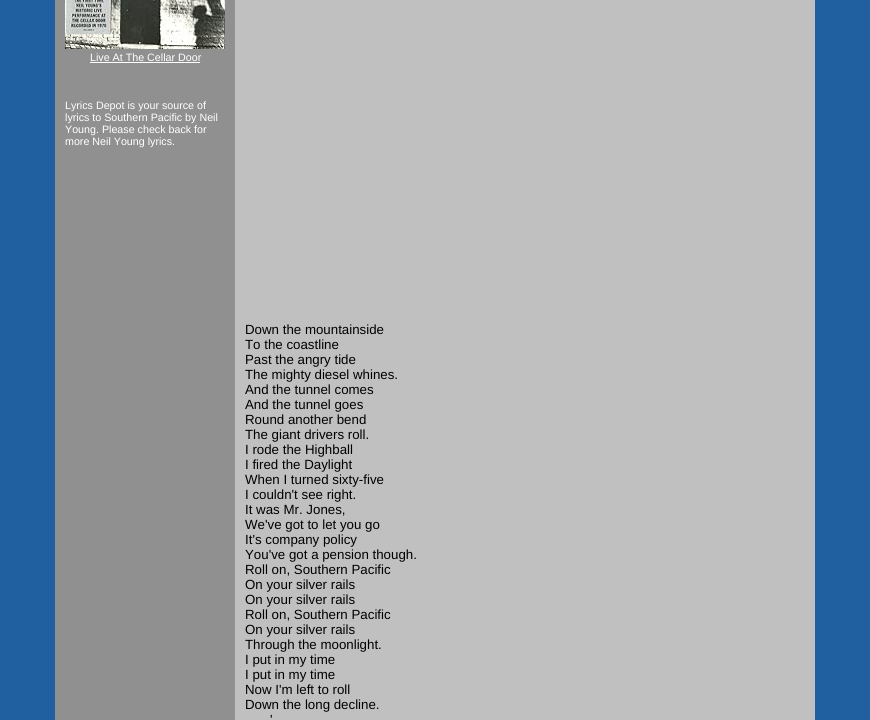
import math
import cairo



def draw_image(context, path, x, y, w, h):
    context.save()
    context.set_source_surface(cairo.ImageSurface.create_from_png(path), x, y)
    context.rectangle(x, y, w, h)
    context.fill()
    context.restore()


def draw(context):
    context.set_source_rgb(32 / 255, 96 / 255, 160 / 255)
    context.paint()
    context.set_source_rgb(192 / 255, 192 / 255, 192 / 255)
    context.rectangle(235, 0, 580, 720)
    context.fill()
    context.set_source_rgb(144 / 255, 144 / 255, 144 / 255)
    context.rectangle(55, 0, 180, 720)
    context.fill()
    draw_image(context, "images/1.png", 65, 0, 160, 49)
    context.set_source_rgb(1, 1, 1)
    context.rectangle(90, 62, 110, 1)
    context.fill()
    context.select_font_face("Liberation Sans")
    context.set_font_size(10.7)
    context.move_to(90, 61)
    context.show_text("Live At The Cellar Door")
    context.move_to(65, 109)
    context.show_text("Lyrics Depot is your source of")
    context.move_to(65, 121)
    context.show_text("lyrics to Southern Pacific by Neil")
    context.move_to(65, 133)
    context.show_text("Young. Please check back for")
    context.move_to(65, 145)
    context.show_text("more Neil Young lyrics.")
    context.set_font_size(13.3)
    context.set_source_rgb(0, 0, 0)
    context.move_to(245, 334)
    context.show_text("Down the mountainside")
    context.move_to(245, 349)
    context.show_text("To the coastline")
    context.move_to(245, 364)
    context.show_text("Past the angry tide")
    context.move_to(245, 379)
    context.show_text("The mighty diesel whines.")
    context.move_to(245, 394)
    context.show_text("And the tunnel comes")
    context.move_to(245, 409)
    context.show_text("And the tunnel goes")
    context.move_to(245, 424)
    context.show_text("Round another bend")
    context.move_to(245, 439)
    context.show_text("The giant drivers roll.")
    context.move_to(245, 454)
    context.show_text("I rode the Highball")
    context.move_to(245, 469)
    context.show_text("I fired the Daylight")
    context.move_to(245, 484)
    context.show_text("When I turned sixty-five")
    context.move_to(245, 499)
    context.show_text("I couldn't see right.")
    context.move_to(245, 514)
    context.show_text("It was Mr. Jones,")
    context.move_to(245, 529)
    context.show_text("We've got to let you go")
    context.move_to(245, 544)
    context.show_text("It's company policy")
    context.move_to(245, 559)
    context.show_text("You've got a pension though.")
    context.move_to(245, 574)
    context.show_text("Roll on, Southern Pacific")
    context.move_to(245, 589)
    context.show_text("On your silver rails")
    context.move_to(245, 604)
    context.show_text("On your silver rails")
    context.move_to(245, 619)
    context.show_text("Roll on, Southern Pacific")
    context.move_to(245, 634)
    context.show_text("On your silver rails")
    context.move_to(245, 649)
    context.show_text("Through the moonlight.")
    context.move_to(245, 664)
    context.show_text("I put in my time")
    context.move_to(245, 679)
    context.show_text("I put in my time")
    context.move_to(245, 694)
    context.show_text("Now I'm left to roll")
    context.move_to(245, 709)
    context.show_text("Down the long decline.")
    context.move_to(270, 724)
    context.show_text("'")


surface = cairo.ImageSurface(cairo.Format.RGB24, 870, 720)
context = cairo.Context(surface)
options = cairo.FontOptions()
options.set_hint_metrics(cairo.HintMetrics.OFF)
options.set_hint_style(cairo.HintStyle.NONE)
context.set_font_options(options)
context.set_miter_limit(4)
draw(context)
surface.write_to_png("out.png")
